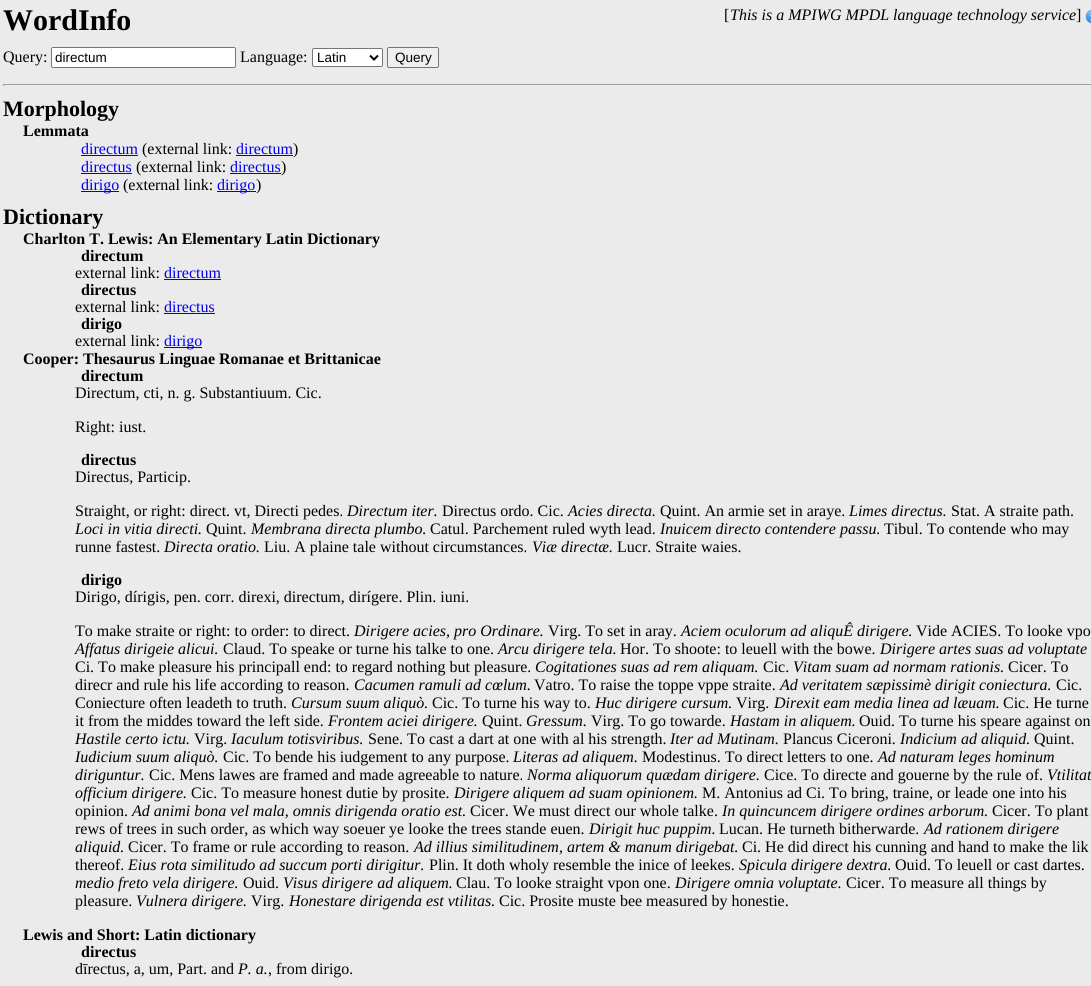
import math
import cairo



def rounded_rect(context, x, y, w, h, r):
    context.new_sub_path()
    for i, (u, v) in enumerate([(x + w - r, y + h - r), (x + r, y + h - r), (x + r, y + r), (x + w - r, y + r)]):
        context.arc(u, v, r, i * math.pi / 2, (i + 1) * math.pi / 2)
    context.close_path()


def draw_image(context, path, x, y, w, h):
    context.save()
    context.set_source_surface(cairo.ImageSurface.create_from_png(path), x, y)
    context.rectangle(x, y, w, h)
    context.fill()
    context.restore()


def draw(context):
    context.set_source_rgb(235 / 255, 235 / 255, 235 / 255)
    context.paint()
    draw_image(context, "images/1.png", 1085, 9, 6, 15)
    context.set_source_rgb(1, 1, 1)
    rounded_rect(context, 51.5, 47.5, 184, 20, 1.5)
    context.fill_preserve()
    context.set_source_rgb(118 / 255, 118 / 255, 118 / 255)
    context.set_line_width(1)
    context.stroke()
    context.set_source_rgb(1, 1, 1)
    rounded_rect(context, 312.5, 48.5, 70, 18, 1.5)
    context.fill_preserve()
    context.set_source_rgb(118 / 255, 118 / 255, 118 / 255)
    context.stroke()
    context.new_path()
    context.move_to(370, 55.5)
    context.line_to(374, 59.5)
    context.line_to(378, 55.5)
    context.set_source_rgb(0, 0, 0)
    context.set_line_width(2)
    context.stroke()
    context.set_source_rgb(239 / 255, 239 / 255, 239 / 255)
    rounded_rect(context, 387.5, 47.5, 51, 20, 1.5)
    context.fill_preserve()
    context.set_source_rgb(118 / 255, 118 / 255, 118 / 255)
    context.set_line_width(1)
    context.stroke()
    context.set_source_rgb(159 / 255, 159 / 255, 159 / 255)
    context.rectangle(3, 84, 1088, 1)
    context.fill()
    context.set_source_rgb(238 / 255, 238 / 255, 238 / 255)
    context.rectangle(3, 85, 1088, 1)
    context.fill()
    context.set_source_rgb(159 / 255, 159 / 255, 159 / 255)
    context.rectangle(3, 84, 1, 2)
    context.fill()
    context.set_source_rgb(0, 0, 238 / 255)
    context.rectangle(81, 155, 57, 1)
    context.fill()
    context.rectangle(236, 155, 57, 1)
    context.fill()
    context.rectangle(81, 173, 51, 1)
    context.fill()
    context.rectangle(230, 173, 51, 1)
    context.fill()
    context.rectangle(81, 191, 38, 1)
    context.fill()
    context.rectangle(217, 191, 39, 1)
    context.fill()
    context.rectangle(164, 279, 57, 1)
    context.fill()
    context.rectangle(164, 313, 51, 1)
    context.fill()
    context.rectangle(164, 347, 38, 1)
    context.fill()
    context.select_font_face("Liberation Serif", cairo.FontSlant.NORMAL, cairo.FontWeight.BOLD)
    context.set_font_size(30)
    context.set_source_rgb(0, 0, 0)
    context.move_to(3, 30)
    context.show_text("WordInfo")
    context.select_font_face("Liberation Serif")
    context.set_font_size(16)
    context.move_to(724, 20)
    context.show_text("[")
    context.select_font_face("Liberation Serif", cairo.FontSlant.ITALIC)
    context.move_to(730, 20)
    context.show_text("This is a MPIWG MPDL language technology service")
    context.select_font_face("Liberation Serif")
    context.move_to(1076, 20)
    context.show_text("]")
    context.move_to(3, 62)
    context.show_text("Query:")
    context.select_font_face("Liberation Sans")
    context.set_font_size(13.5)
    context.move_to(55, 62)
    context.show_text("directum")
    context.select_font_face("Liberation Serif")
    context.set_font_size(16)
    context.move_to(240, 62)
    context.show_text("Language:")
    context.select_font_face("Liberation Sans")
    context.set_font_size(13.5)
    context.move_to(317, 62)
    context.show_text("Latin")
    context.move_to(395, 62)
    context.show_text("Query")
    context.select_font_face("Liberation Serif", cairo.FontSlant.NORMAL, cairo.FontWeight.BOLD)
    context.set_font_size(22)
    context.move_to(3, 116)
    context.show_text("Morphology")
    context.set_font_size(16)
    context.move_to(23, 136)
    context.show_text("Lemmata")
    context.select_font_face("Liberation Serif")
    context.set_source_rgb(0, 0, 238 / 255)
    context.move_to(81, 154)
    context.show_text("directum")
    context.set_source_rgb(0, 0, 0)
    context.move_to(142, 154)
    context.show_text("(external link:")
    context.set_source_rgb(0, 0, 238 / 255)
    context.move_to(236, 154)
    context.show_text("directum")
    context.set_source_rgb(0, 0, 0)
    context.move_to(293, 154)
    context.show_text(")")
    context.set_source_rgb(0, 0, 238 / 255)
    context.move_to(81, 172)
    context.show_text("directus")
    context.set_source_rgb(0, 0, 0)
    context.move_to(136, 172)
    context.show_text("(external link:")
    context.set_source_rgb(0, 0, 238 / 255)
    context.move_to(230, 172)
    context.show_text("directus")
    context.set_source_rgb(0, 0, 0)
    context.move_to(281, 172)
    context.show_text(")")
    context.set_source_rgb(0, 0, 238 / 255)
    context.move_to(81, 190)
    context.show_text("dirigo")
    context.set_source_rgb(0, 0, 0)
    context.move_to(123, 190)
    context.show_text("(external link:")
    context.set_source_rgb(0, 0, 238 / 255)
    context.move_to(217, 190)
    context.show_text("dirigo")
    context.set_source_rgb(0, 0, 0)
    context.move_to(256, 190)
    context.show_text(")")
    context.select_font_face("Liberation Serif", cairo.FontSlant.NORMAL, cairo.FontWeight.BOLD)
    context.set_font_size(22)
    context.move_to(3, 224)
    context.show_text("Dictionary")
    context.set_font_size(16)
    context.move_to(23, 244)
    context.show_text("Charlton T. Lewis: An Elementary Latin Dictionary")
    context.move_to(81, 261)
    context.show_text("directum")
    context.select_font_face("Liberation Serif")
    context.move_to(75, 278)
    context.show_text("external link:")
    context.set_source_rgb(0, 0, 238 / 255)
    context.move_to(164, 278)
    context.show_text("directum")
    context.select_font_face("Liberation Serif", cairo.FontSlant.NORMAL, cairo.FontWeight.BOLD)
    context.set_source_rgb(0, 0, 0)
    context.move_to(81, 295)
    context.show_text("directus")
    context.select_font_face("Liberation Serif")
    context.move_to(75, 312)
    context.show_text("external link:")
    context.set_source_rgb(0, 0, 238 / 255)
    context.move_to(164, 312)
    context.show_text("directus")
    context.select_font_face("Liberation Serif", cairo.FontSlant.NORMAL, cairo.FontWeight.BOLD)
    context.set_source_rgb(0, 0, 0)
    context.move_to(81, 329)
    context.show_text("dirigo")
    context.select_font_face("Liberation Serif")
    context.move_to(75, 346)
    context.show_text("external link:")
    context.set_source_rgb(0, 0, 238 / 255)
    context.move_to(164, 346)
    context.show_text("dirigo")
    context.select_font_face("Liberation Serif", cairo.FontSlant.NORMAL, cairo.FontWeight.BOLD)
    context.set_source_rgb(0, 0, 0)
    context.move_to(23, 364)
    context.show_text("Cooper: Thesaurus Linguae Romanae et Brittanicae")
    context.move_to(81, 381)
    context.show_text("directum")
    context.select_font_face("Liberation Serif")
    context.move_to(75, 398)
    context.show_text("Directum, cti, n. g. Substantiuum. Cic.")
    context.move_to(75, 432)
    context.show_text("Right: iust.")
    context.select_font_face("Liberation Serif", cairo.FontSlant.NORMAL, cairo.FontWeight.BOLD)
    context.move_to(81, 465)
    context.show_text("directus")
    context.select_font_face("Liberation Serif")
    context.move_to(75, 482)
    context.show_text("Directus, Particip.")
    context.move_to(75, 516)
    context.show_text("Straight, or right: direct. vt, Directi pedes.")
    context.select_font_face("Liberation Serif", cairo.FontSlant.ITALIC)
    context.move_to(347, 516)
    context.show_text("Directum iter.")
    context.select_font_face("Liberation Serif")
    context.move_to(442, 516)
    context.show_text("Directus ordo. Cic.")
    context.select_font_face("Liberation Serif", cairo.FontSlant.ITALIC)
    context.move_to(568, 516)
    context.show_text("Acies directa.")
    context.select_font_face("Liberation Serif")
    context.move_to(660, 516)
    context.show_text("Quint. An armie set in araye.")
    context.select_font_face("Liberation Serif", cairo.FontSlant.ITALIC)
    context.move_to(849, 516)
    context.show_text("Limes directus.")
    context.select_font_face("Liberation Serif")
    context.move_to(951, 516)
    context.show_text("Stat. A straite path.")
    context.select_font_face("Liberation Serif", cairo.FontSlant.ITALIC)
    context.move_to(75, 534)
    context.show_text("Loci in vitia directi.")
    context.select_font_face("Liberation Serif")
    context.move_to(206, 534)
    context.show_text("Quint.")
    context.select_font_face("Liberation Serif", cairo.FontSlant.ITALIC)
    context.move_to(251, 534)
    context.show_text("Membrana directa plumbo.")
    context.select_font_face("Liberation Serif")
    context.move_to(430, 534)
    context.show_text("Catul. Parchement ruled wyth lead.")
    context.select_font_face("Liberation Serif", cairo.FontSlant.ITALIC)
    context.move_to(660, 534)
    context.show_text("Inuicem directo contendere passu.")
    context.select_font_face("Liberation Serif")
    context.move_to(884, 534)
    context.show_text("Tibul. To contende who may")
    context.move_to(75, 552)
    context.show_text("runne fastest.")
    context.select_font_face("Liberation Serif", cairo.FontSlant.ITALIC)
    context.move_to(164, 552)
    context.show_text("Directa oratio.")
    context.select_font_face("Liberation Serif")
    context.move_to(264, 552)
    context.show_text("Liu. A plaine tale without circumstances.")
    context.select_font_face("Liberation Serif", cairo.FontSlant.ITALIC)
    context.move_to(532, 552)
    context.show_text("Viæ directæ.")
    context.select_font_face("Liberation Serif")
    context.move_to(617, 552)
    context.show_text("Lucr. Straite waies.")
    context.select_font_face("Liberation Serif", cairo.FontSlant.NORMAL, cairo.FontWeight.BOLD)
    context.move_to(81, 585)
    context.show_text("dirigo")
    context.select_font_face("Liberation Serif")
    context.move_to(75, 602)
    context.show_text("Dirigo, dírigis, pen. corr. direxi, directum, dirígere. Plin. iuni.")
    context.move_to(75, 636)
    context.show_text("To make straite or right: to order: to direct.")
    context.select_font_face("Liberation Serif", cairo.FontSlant.ITALIC)
    context.move_to(354, 636)
    context.show_text("Dirigere acies, pro Ordinare.")
    context.select_font_face("Liberation Serif")
    context.move_to(548, 636)
    context.show_text("Virg. To set in aray.")
    context.select_font_face("Liberation Serif", cairo.FontSlant.ITALIC)
    context.move_to(681, 636)
    context.show_text("Aciem oculorum ad aliquÊ dirigere.")
    context.select_font_face("Liberation Serif")
    context.move_to(916, 636)
    context.show_text("Vide ACIES. To looke vpo")
    context.select_font_face("Liberation Serif", cairo.FontSlant.ITALIC)
    context.move_to(75, 654)
    context.show_text("Affatus dirigeie alicui.")
    context.select_font_face("Liberation Serif")
    context.move_to(223, 654)
    context.show_text("Claud. To speake or turne his talke to one.")
    context.select_font_face("Liberation Serif", cairo.FontSlant.ITALIC)
    context.move_to(498, 654)
    context.show_text("Arcu dirigere tela.")
    context.select_font_face("Liberation Serif")
    context.move_to(620, 654)
    context.show_text("Hor. To shoote: to leuell with the bowe.")
    context.select_font_face("Liberation Serif", cairo.FontSlant.ITALIC)
    context.move_to(880, 654)
    context.show_text("Dirigere artes suas ad voluptate")
    context.select_font_face("Liberation Serif")
    context.move_to(75, 672)
    context.show_text("Ci. To make pleasure his principall end: to regard nothing but pleasure.")
    context.select_font_face("Liberation Serif", cairo.FontSlant.ITALIC)
    context.move_to(535, 672)
    context.show_text("Cogitationes suas ad rem aliquam.")
    context.select_font_face("Liberation Serif")
    context.move_to(763, 672)
    context.show_text("Cic.")
    context.select_font_face("Liberation Serif", cairo.FontSlant.ITALIC)
    context.move_to(793, 672)
    context.show_text("Vitam suam ad normam rationis.")
    context.select_font_face("Liberation Serif")
    context.move_to(1008, 672)
    context.show_text("Cicer. To")
    context.move_to(75, 690)
    context.show_text("direcr and rule his life according to reason.")
    context.select_font_face("Liberation Serif", cairo.FontSlant.ITALIC)
    context.move_to(354, 690)
    context.show_text("Cacumen ramuli ad cœlum.")
    context.select_font_face("Liberation Serif")
    context.move_to(534, 690)
    context.show_text("Vatro. To raise the toppe vppe straite.")
    context.select_font_face("Liberation Serif", cairo.FontSlant.ITALIC)
    context.move_to(780, 690)
    context.show_text("Ad veritatem sæpissimè dirigit coniectura.")
    context.select_font_face("Liberation Serif")
    context.move_to(1056, 690)
    context.show_text("Cic.")
    context.move_to(75, 708)
    context.show_text("Coniecture often leadeth to truth.")
    context.select_font_face("Liberation Serif", cairo.FontSlant.ITALIC)
    context.move_to(291, 708)
    context.show_text("Cursum suum aliquò.")
    context.select_font_face("Liberation Serif")
    context.move_to(432, 708)
    context.show_text("Cic. To turne his way to.")
    context.select_font_face("Liberation Serif", cairo.FontSlant.ITALIC)
    context.move_to(595, 708)
    context.show_text("Huc dirigere cursum.")
    context.select_font_face("Liberation Serif")
    context.move_to(736, 708)
    context.show_text("Virg.")
    context.select_font_face("Liberation Serif", cairo.FontSlant.ITALIC)
    context.move_to(774, 708)
    context.show_text("Direxit eam media linea ad læuam.")
    context.select_font_face("Liberation Serif")
    context.move_to(1003, 708)
    context.show_text("Cic. He turne")
    context.move_to(75, 726)
    context.show_text("it from the middes toward the left side.")
    context.select_font_face("Liberation Serif", cairo.FontSlant.ITALIC)
    context.move_to(328, 726)
    context.show_text("Frontem aciei dirigere.")
    context.select_font_face("Liberation Serif")
    context.move_to(482, 726)
    context.show_text("Quint.")
    context.select_font_face("Liberation Serif", cairo.FontSlant.ITALIC)
    context.move_to(526, 726)
    context.show_text("Gressum.")
    context.select_font_face("Liberation Serif")
    context.move_to(591, 726)
    context.show_text("Virg. To go towarde.")
    context.select_font_face("Liberation Serif", cairo.FontSlant.ITALIC)
    context.move_to(730, 726)
    context.show_text("Hastam in aliquem.")
    context.select_font_face("Liberation Serif")
    context.move_to(859, 726)
    context.show_text("Ouid. To turne his speare against on")
    context.select_font_face("Liberation Serif", cairo.FontSlant.ITALIC)
    context.move_to(75, 744)
    context.show_text("Hastile certo ictu.")
    context.select_font_face("Liberation Serif")
    context.move_to(194, 744)
    context.show_text("Virg.")
    context.select_font_face("Liberation Serif", cairo.FontSlant.ITALIC)
    context.move_to(231, 744)
    context.show_text("Iaculum totisviribus.")
    context.select_font_face("Liberation Serif")
    context.move_to(368, 744)
    context.show_text("Sene. To cast a dart at one with al his strength.")
    context.select_font_face("Liberation Serif", cairo.FontSlant.ITALIC)
    context.move_to(670, 744)
    context.show_text("Iter ad Mutinam.")
    context.select_font_face("Liberation Serif")
    context.move_to(783, 744)
    context.show_text("Plancus Ciceroni.")
    context.select_font_face("Liberation Serif", cairo.FontSlant.ITALIC)
    context.move_to(900, 744)
    context.show_text("Indicium ad aliquid.")
    context.select_font_face("Liberation Serif")
    context.move_to(1034, 744)
    context.show_text("Quint.")
    context.select_font_face("Liberation Serif", cairo.FontSlant.ITALIC)
    context.move_to(75, 762)
    context.show_text("Iudicium suum aliquò.")
    context.select_font_face("Liberation Serif")
    context.move_to(223, 762)
    context.show_text("Cic. To bende his iudgement to any purpose.")
    context.select_font_face("Liberation Serif", cairo.FontSlant.ITALIC)
    context.move_to(513, 762)
    context.show_text("Literas ad aliquem.")
    context.select_font_face("Liberation Serif")
    context.move_to(642, 762)
    context.show_text("Modestinus. To direct letters to one.")
    context.select_font_face("Liberation Serif", cairo.FontSlant.ITALIC)
    context.move_to(878, 762)
    context.show_text("Ad naturam leges hominum")
    context.move_to(75, 780)
    context.show_text("diriguntur.")
    context.select_font_face("Liberation Serif")
    context.move_to(149, 780)
    context.show_text("Cic. Mens lawes are framed and made agreeable to nature.")
    context.select_font_face("Liberation Serif", cairo.FontSlant.ITALIC)
    context.move_to(527, 780)
    context.show_text("Norma aliquorum quædam dirigere.")
    context.select_font_face("Liberation Serif")
    context.move_to(764, 780)
    context.show_text("Cice. To directe and gouerne by the rule of.")
    context.select_font_face("Liberation Serif", cairo.FontSlant.ITALIC)
    context.move_to(1047, 780)
    context.show_text("Vtilitat")
    context.move_to(75, 798)
    context.show_text("officium dirigere.")
    context.select_font_face("Liberation Serif")
    context.move_to(191, 798)
    context.show_text("Cic. To measure honest dutie by prosite.")
    context.select_font_face("Liberation Serif", cairo.FontSlant.ITALIC)
    context.move_to(454, 798)
    context.show_text("Dirigere aliquem ad suam opinionem.")
    context.select_font_face("Liberation Serif")
    context.move_to(702, 798)
    context.show_text("M. Antonius ad Ci. To bring, traine, or leade one into his")
    context.move_to(75, 816)
    context.show_text("opinion.")
    context.select_font_face("Liberation Serif", cairo.FontSlant.ITALIC)
    context.move_to(132, 816)
    context.show_text("Ad animi bona vel mala, omnis dirigenda oratio est.")
    context.select_font_face("Liberation Serif")
    context.move_to(470, 816)
    context.show_text("Cicer. We must direct our whole talke.")
    context.select_font_face("Liberation Serif", cairo.FontSlant.ITALIC)
    context.move_to(722, 816)
    context.show_text("In quincuncem dirigere ordines arborum.")
    context.select_font_face("Liberation Serif")
    context.move_to(992, 816)
    context.show_text("Cicer. To plant")
    context.move_to(75, 834)
    context.show_text("rews of trees in such order, as which way soeuer ye looke the trees stande euen.")
    context.select_font_face("Liberation Serif", cairo.FontSlant.ITALIC)
    context.move_to(589, 834)
    context.show_text("Dirigit huc puppim.")
    context.select_font_face("Liberation Serif")
    context.move_to(719, 834)
    context.show_text("Lucan. He turneth bitherwarde.")
    context.select_font_face("Liberation Serif", cairo.FontSlant.ITALIC)
    context.move_to(924, 834)
    context.show_text("Ad rationem dirigere")
    context.move_to(75, 852)
    context.show_text("aliquid.")
    context.select_font_face("Liberation Serif")
    context.move_to(128, 852)
    context.show_text("Cicer. To frame or rule according to reason.")
    context.select_font_face("Liberation Serif", cairo.FontSlant.ITALIC)
    context.move_to(414, 852)
    context.show_text("Ad illius similitudinem, artem & manum dirigebat.")
    context.select_font_face("Liberation Serif")
    context.move_to(742, 852)
    context.show_text("Ci. He did direct his cunning and hand to make the lik")
    context.move_to(75, 870)
    context.show_text("thereof.")
    context.select_font_face("Liberation Serif", cairo.FontSlant.ITALIC)
    context.move_to(128, 870)
    context.show_text("Eius rota similitudo ad succum porti dirigitur.")
    context.select_font_face("Liberation Serif")
    context.move_to(429, 870)
    context.show_text("Plin. It doth wholy resemble the inice of leekes.")
    context.select_font_face("Liberation Serif", cairo.FontSlant.ITALIC)
    context.move_to(739, 870)
    context.show_text("Spicula dirigere dextra.")
    context.select_font_face("Liberation Serif")
    context.move_to(895, 870)
    context.show_text("Ouid. To leuell or cast dartes.")
    context.select_font_face("Liberation Serif", cairo.FontSlant.ITALIC)
    context.move_to(75, 888)
    context.show_text("medio freto vela dirigere.")
    context.select_font_face("Liberation Serif")
    context.move_to(243, 888)
    context.show_text("Ouid.")
    context.select_font_face("Liberation Serif", cairo.FontSlant.ITALIC)
    context.move_to(283, 888)
    context.show_text("Visus dirigere ad aliquem.")
    context.select_font_face("Liberation Serif")
    context.move_to(456, 888)
    context.show_text("Clau. To looke straight vpon one.")
    context.select_font_face("Liberation Serif", cairo.FontSlant.ITALIC)
    context.move_to(675, 888)
    context.show_text("Dirigere omnia voluptate.")
    context.select_font_face("Liberation Serif")
    context.move_to(846, 888)
    context.show_text("Cicer. To measure all things by")
    context.move_to(75, 906)
    context.show_text("pleasure.")
    context.select_font_face("Liberation Serif", cairo.FontSlant.ITALIC)
    context.move_to(136, 906)
    context.show_text("Vulnera dirigere.")
    context.select_font_face("Liberation Serif")
    context.move_to(251, 906)
    context.show_text("Virg.")
    context.select_font_face("Liberation Serif", cairo.FontSlant.ITALIC)
    context.move_to(289, 906)
    context.show_text("Honestare dirigenda est vtilitas.")
    context.select_font_face("Liberation Serif")
    context.move_to(499, 906)
    context.show_text("Cic. Prosite muste bee measured by honestie.")
    context.select_font_face("Liberation Serif", cairo.FontSlant.NORMAL, cairo.FontWeight.BOLD)
    context.move_to(23, 940)
    context.show_text("Lewis and Short: Latin dictionary")
    context.move_to(81, 957)
    context.show_text("directus")
    context.select_font_face("Liberation Serif")
    context.move_to(75, 974)
    context.show_text("dīrectus, a, um, Part. and")
    context.select_font_face("Liberation Serif", cairo.FontSlant.ITALIC)
    context.move_to(238, 974)
    context.show_text("P. a.")
    context.select_font_face("Liberation Serif")
    context.move_to(268, 974)
    context.show_text(", from dirigo.")


surface = cairo.ImageSurface(cairo.Format.RGB24, 1091, 986)
context = cairo.Context(surface)
options = cairo.FontOptions()
options.set_hint_metrics(cairo.HintMetrics.OFF)
options.set_hint_style(cairo.HintStyle.NONE)
context.set_font_options(options)
context.set_miter_limit(4)
draw(context)
surface.write_to_png("out.png")
